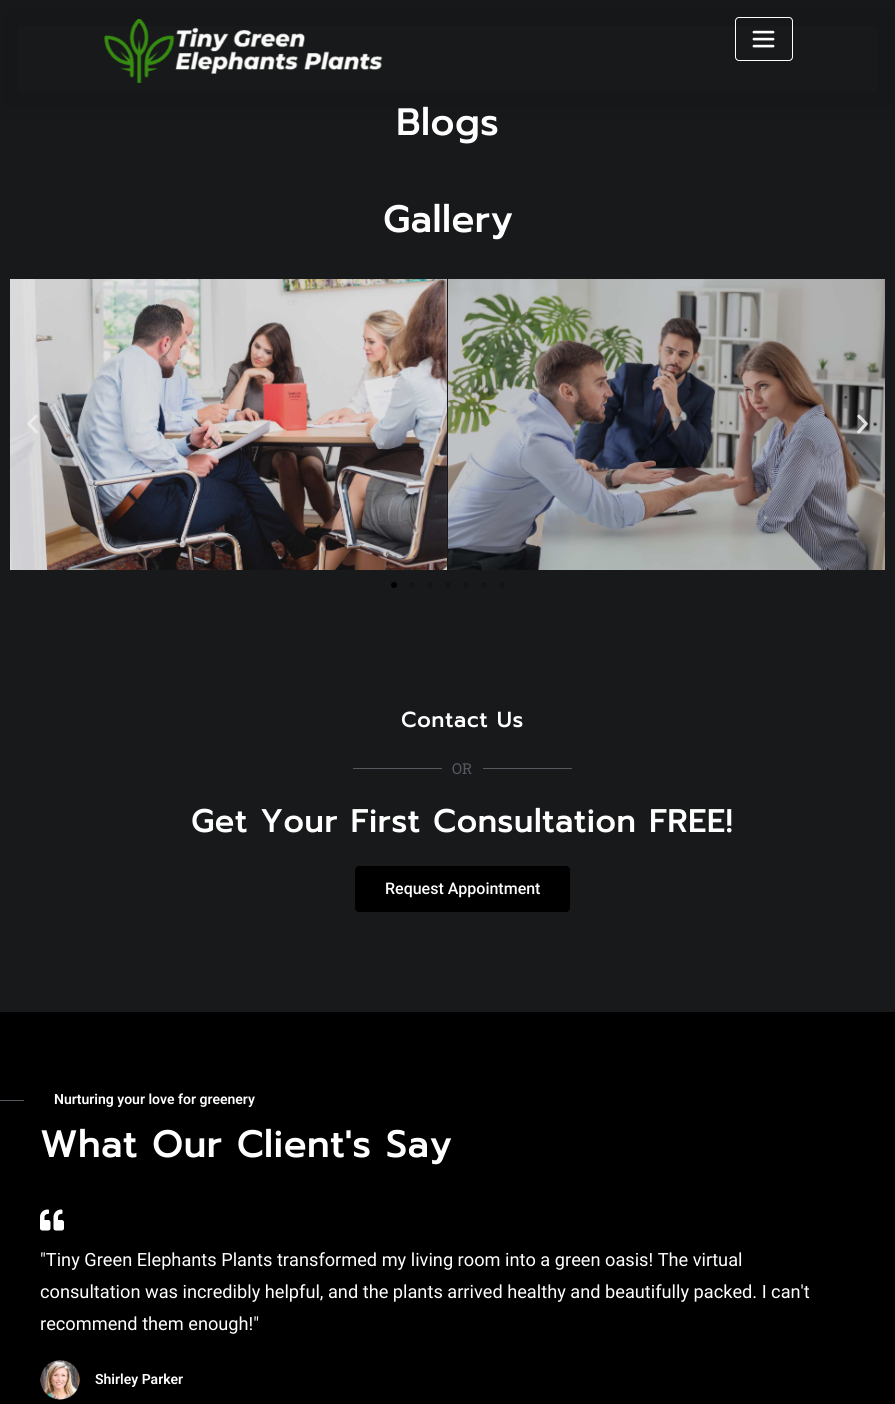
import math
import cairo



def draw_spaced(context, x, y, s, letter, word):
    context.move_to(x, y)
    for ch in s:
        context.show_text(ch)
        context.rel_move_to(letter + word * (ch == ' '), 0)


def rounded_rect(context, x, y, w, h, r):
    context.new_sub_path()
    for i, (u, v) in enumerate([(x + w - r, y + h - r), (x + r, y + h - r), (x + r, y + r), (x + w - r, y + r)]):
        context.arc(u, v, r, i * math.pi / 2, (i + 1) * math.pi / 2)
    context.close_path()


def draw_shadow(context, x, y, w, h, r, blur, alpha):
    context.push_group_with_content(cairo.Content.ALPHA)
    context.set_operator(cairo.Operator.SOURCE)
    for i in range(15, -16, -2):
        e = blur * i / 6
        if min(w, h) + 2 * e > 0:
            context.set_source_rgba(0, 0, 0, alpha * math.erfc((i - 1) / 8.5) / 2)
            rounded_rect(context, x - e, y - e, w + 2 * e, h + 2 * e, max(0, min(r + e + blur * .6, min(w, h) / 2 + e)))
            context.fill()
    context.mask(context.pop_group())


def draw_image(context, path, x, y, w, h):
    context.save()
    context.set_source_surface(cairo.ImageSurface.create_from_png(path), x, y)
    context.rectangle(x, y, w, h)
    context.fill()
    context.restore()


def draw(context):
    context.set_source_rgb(24 / 255, 25 / 255, 27 / 255)
    context.paint()
    context.set_source_rgb(0, 0, 0)
    draw_shadow(context, 0, 8, 895, 102, 0, 10, 0.1)
    context.set_source_rgb(24 / 255, 25 / 255, 27 / 255)
    context.rectangle(18, 26, 859, 66)
    context.fill()
    draw_image(context, "images/1.png", 104, 19, 279, 64)
    rounded_rect(context, 735.5, 17.5, 57, 43, 3.5)
    context.set_source_rgb(1, 1, 1)
    context.set_line_width(1)
    context.stroke()
    draw_image(context, "images/2.png", 752, 30, 23, 18)
    draw_image(context, "images/3.png", 10, 279, 437, 291)
    draw_image(context, "images/4.png", 448, 279, 437, 291)
    draw_image(context, "images/5.png", 27, 414, 11, 20)
    draw_image(context, "images/6.png", 857, 414, 11, 20)
    context.set_source_rgb(0, 0, 0)
    context.arc(394, 585, 3, 0, 2 * math.pi)
    context.fill()
    context.set_source_rgb(19 / 255, 20 / 255, 22 / 255)
    context.arc(412, 585, 3, 0, 2 * math.pi)
    context.fill()
    context.arc(430, 585, 3, 0, 2 * math.pi)
    context.fill()
    context.arc(448, 585, 3, 0, 2 * math.pi)
    context.fill()
    context.arc(466, 585, 3, 0, 2 * math.pi)
    context.fill()
    context.arc(484, 585, 3, 0, 2 * math.pi)
    context.fill()
    context.arc(502, 585, 3, 0, 2 * math.pi)
    context.fill()
    context.set_source_rgb(84 / 255, 89 / 255, 95 / 255)
    context.rectangle(353, 768, 89, 1)
    context.fill()
    context.rectangle(483, 768, 89, 1)
    context.fill()
    context.set_source_rgb(0, 0, 0)
    rounded_rect(context, 355, 866, 215, 46, 4)
    context.fill()
    context.rectangle(0, 1012, 895, 392)
    context.fill()
    context.set_source_rgb(84 / 255, 89 / 255, 95 / 255)
    context.rectangle(0, 1100, 24, 1)
    context.fill()
    draw_image(context, "images/7.png", 40, 1209, 24, 22)
    draw_image(context, "images/8.png", 40, 1360, 40, 40)
    context.select_font_face("Prompt", cairo.FontSlant.NORMAL, cairo.FontWeight.BOLD)
    context.set_font_size(36.75)
    context.set_source_rgb(1, 1, 1)
    draw_spaced(context, 396, 135, "Blogs", 1, 0)
    draw_spaced(context, 383, 232, "Gallery", 1, 0)
    context.set_font_size(21)
    draw_spaced(context, 401, 727, "Contact Us", 1, 0)
    context.select_font_face("Roboto Slab")
    context.set_font_size(15)
    context.set_source_rgb(84 / 255, 89 / 255, 95 / 255)
    context.move_to(452, 774)
    context.show_text("OR")
    context.select_font_face("Prompt", cairo.FontSlant.NORMAL, cairo.FontWeight.BOLD)
    context.set_font_size(31.5)
    context.set_source_rgb(1, 1, 1)
    draw_spaced(context, 191, 832, "Get Your First Consultation FREE!", 1, 0)
    context.select_font_face("Roboto Medium")
    context.set_font_size(16)
    context.move_to(385, 894)
    context.show_text("Request Appointment")
    context.select_font_face("Roboto SemiBold")
    context.set_font_size(14)
    context.move_to(54, 1104)
    context.show_text("Nurturing your love for greenery")
    context.select_font_face("Prompt", cairo.FontSlant.NORMAL, cairo.FontWeight.BOLD)
    context.set_font_size(36.75)
    draw_spaced(context, 40, 1157, "What Our Client's Say", 1, 0)
    context.select_font_face("Roboto")
    context.set_font_size(18.2)
    context.move_to(40, 1266)
    context.show_text("\"Tiny Green Elephants Plants transformed my living room into a green oasis! The virtual")
    context.move_to(40, 1298)
    context.show_text("consultation was incredibly helpful, and the plants arrived healthy and beautifully packed. I can't")
    context.move_to(40, 1330)
    context.show_text("recommend them enough!\"")
    context.select_font_face("Roboto SemiBold")
    context.set_font_size(14)
    context.move_to(95, 1384)
    context.show_text("Shirley Parker")


surface = cairo.ImageSurface(cairo.Format.RGB24, 895, 1404)
context = cairo.Context(surface)
options = cairo.FontOptions()
options.set_hint_metrics(cairo.HintMetrics.OFF)
options.set_hint_style(cairo.HintStyle.NONE)
context.set_font_options(options)
context.set_miter_limit(4)
draw(context)
surface.write_to_png("out.png")
